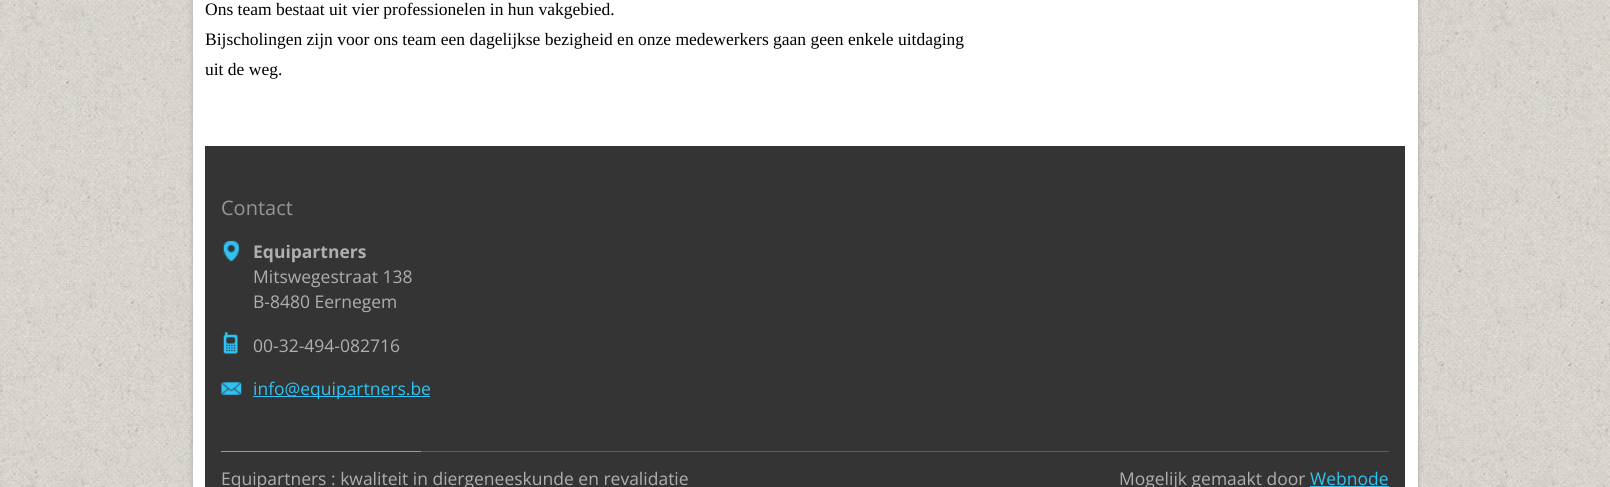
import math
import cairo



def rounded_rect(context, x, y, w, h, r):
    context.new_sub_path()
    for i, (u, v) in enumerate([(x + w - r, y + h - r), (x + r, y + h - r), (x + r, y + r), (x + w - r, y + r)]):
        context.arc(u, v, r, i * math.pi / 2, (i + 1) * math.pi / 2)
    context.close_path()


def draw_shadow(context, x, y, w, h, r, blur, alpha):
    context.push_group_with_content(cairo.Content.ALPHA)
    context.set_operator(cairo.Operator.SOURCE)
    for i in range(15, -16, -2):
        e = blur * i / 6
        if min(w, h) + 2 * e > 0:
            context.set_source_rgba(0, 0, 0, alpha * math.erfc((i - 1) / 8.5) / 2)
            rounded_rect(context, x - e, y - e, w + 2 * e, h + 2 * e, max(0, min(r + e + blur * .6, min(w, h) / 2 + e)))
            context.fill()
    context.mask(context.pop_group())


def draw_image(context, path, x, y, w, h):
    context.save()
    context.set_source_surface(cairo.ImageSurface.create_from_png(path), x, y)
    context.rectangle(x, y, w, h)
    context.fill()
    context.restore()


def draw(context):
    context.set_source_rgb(1, 1, 1)
    context.paint()
    draw_image(context, "images/1.png", 0, 0, 1610, 487)
    context.set_source_rgb(152 / 255, 152 / 255, 152 / 255)
    draw_shadow(context, 193, -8, 1225, 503, 0, 2.5, 0.75)
    context.set_source_rgb(1, 1, 1)
    context.rectangle(193, 0, 1225, 487)
    context.fill()
    context.set_source_rgb(52 / 255, 52 / 255, 52 / 255)
    context.rectangle(205, 146, 1200, 341)
    context.fill()
    draw_image(context, "images/2.png", 223, 240, 16, 22)
    draw_image(context, "images/3.png", 223, 332, 15, 22)
    draw_image(context, "images/4.png", 221, 382, 21, 13)
    context.set_source_rgb(47 / 255, 194 / 255, 242 / 255)
    context.rectangle(253, 396, 177, 1)
    context.fill()
    context.set_source_rgb(95 / 255, 95 / 255, 95 / 255)
    context.rectangle(421, 451, 968, 1)
    context.fill()
    context.set_source_rgb(47 / 255, 194 / 255, 242 / 255)
    context.rectangle(221, 451, 200, 1)
    context.fill()
    context.rectangle(1310, 486, 79, 1)
    context.fill()
    context.select_font_face("Liberation Serif")
    context.set_font_size(17.5)
    context.set_source_rgb(0, 0, 0)
    context.move_to(205, 15)
    context.show_text("Ons team bestaat uit vier professionelen in hun vakgebied.")
    context.move_to(205, 45)
    context.show_text("Bijscholingen zijn voor ons team een dagelijkse bezigheid en onze medewerkers gaan geen enkele uitdaging")
    context.move_to(205, 75)
    context.show_text("uit de weg.")
    context.select_font_face("Open Sans")
    context.set_font_size(20)
    context.set_source_rgb(149 / 255, 149 / 255, 149 / 255)
    context.move_to(221, 215)
    context.show_text("Contact")
    context.select_font_face("Open Sans", cairo.FontSlant.NORMAL, cairo.FontWeight.BOLD)
    context.set_font_size(17.5)
    context.set_source_rgb(176 / 255, 175 / 255, 175 / 255)
    context.move_to(253, 258)
    context.show_text("Equipartners")
    context.select_font_face("Open Sans")
    context.move_to(253, 283)
    context.show_text("Mitswegestraat 138")
    context.move_to(253, 308)
    context.show_text("B-8480 Eernegem")
    context.move_to(253, 352)
    context.show_text("00-32-494-082716")
    context.set_source_rgb(47 / 255, 194 / 255, 242 / 255)
    context.move_to(253, 395)
    context.show_text("info@equipartners.be")
    context.set_source_rgb(176 / 255, 175 / 255, 175 / 255)
    context.move_to(221, 485)
    context.show_text("Equipartners : kwaliteit in diergeneeskunde en revalidatie")
    context.move_to(1119, 485)
    context.show_text("Mogelijk gemaakt door")
    context.set_source_rgb(47 / 255, 194 / 255, 242 / 255)
    context.move_to(1310, 485)
    context.show_text("Webnode")


surface = cairo.ImageSurface(cairo.Format.RGB24, 1610, 487)
context = cairo.Context(surface)
options = cairo.FontOptions()
options.set_hint_metrics(cairo.HintMetrics.OFF)
options.set_hint_style(cairo.HintStyle.NONE)
context.set_font_options(options)
context.set_miter_limit(4)
draw(context)
surface.write_to_png("out.png")
